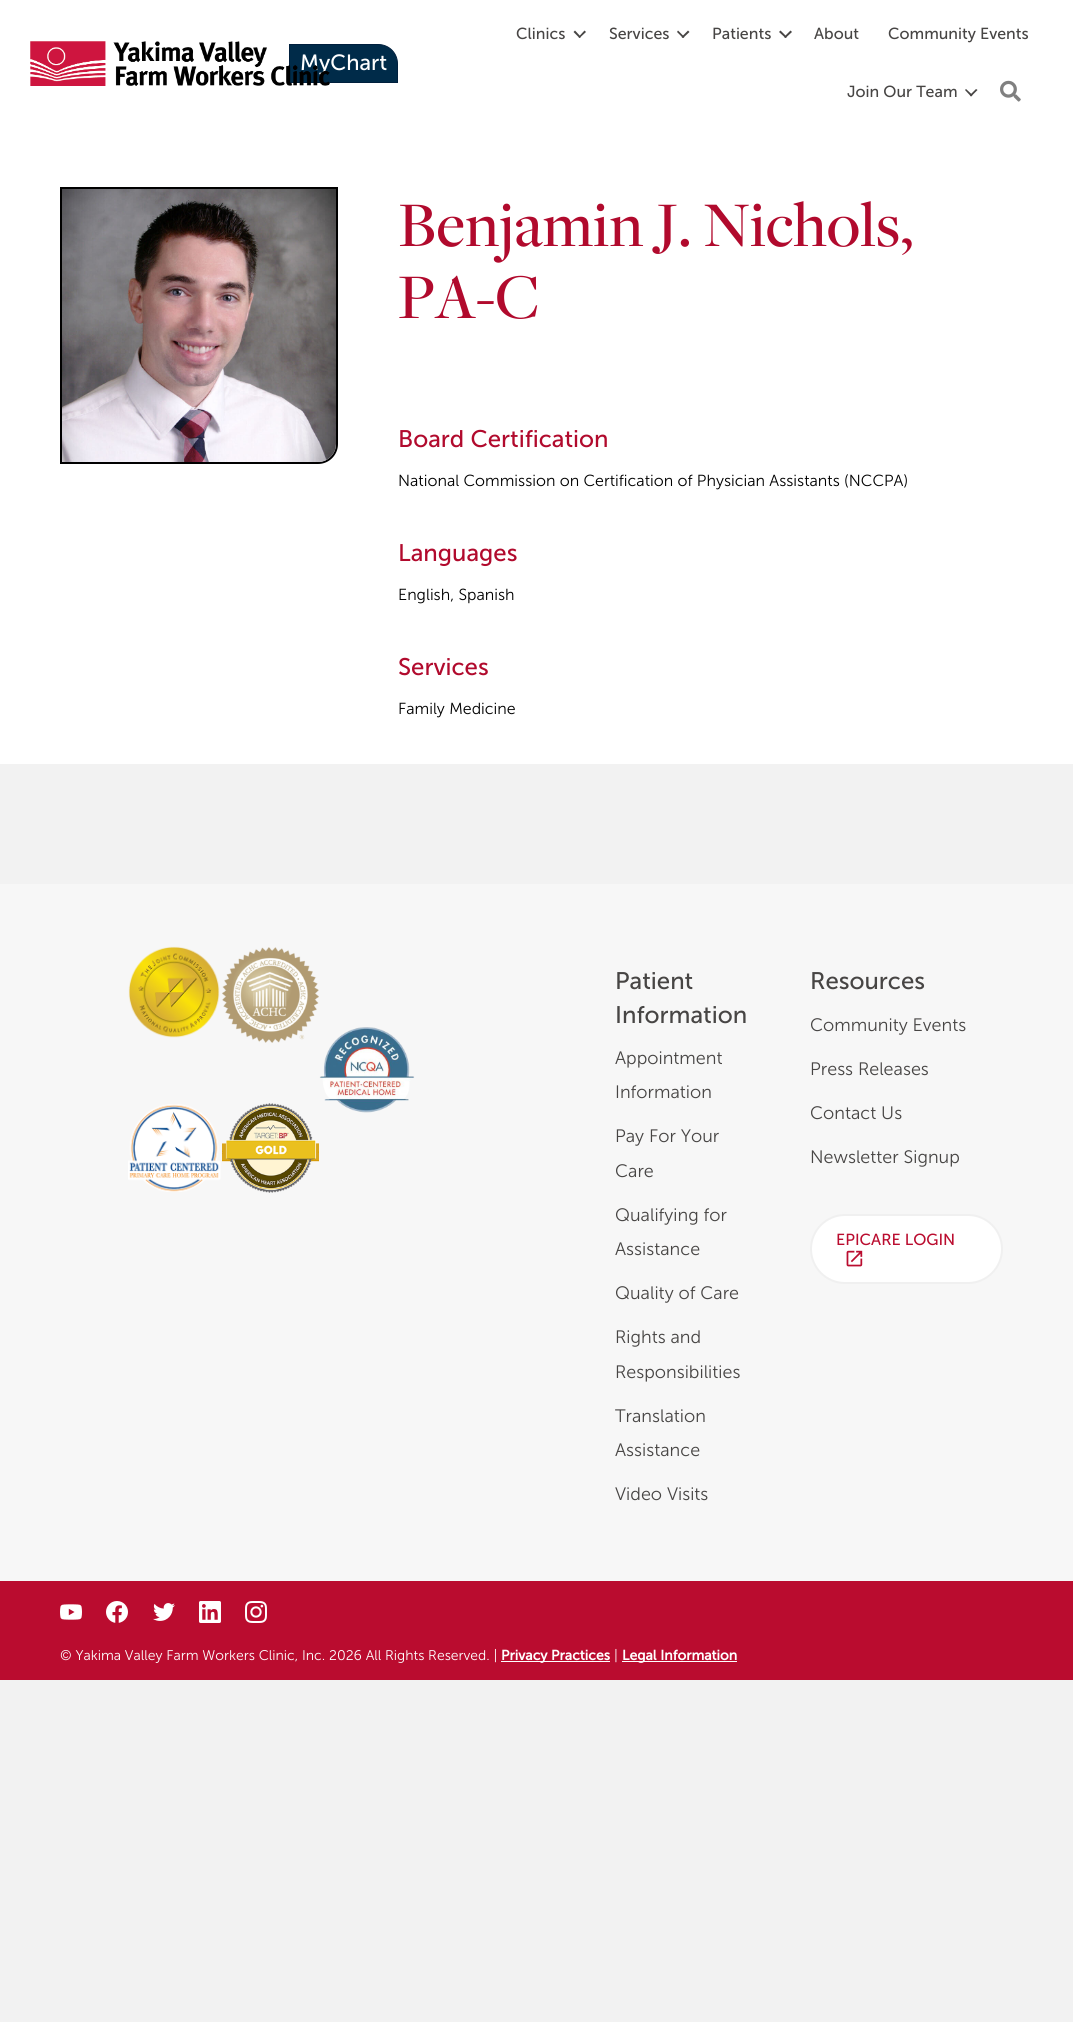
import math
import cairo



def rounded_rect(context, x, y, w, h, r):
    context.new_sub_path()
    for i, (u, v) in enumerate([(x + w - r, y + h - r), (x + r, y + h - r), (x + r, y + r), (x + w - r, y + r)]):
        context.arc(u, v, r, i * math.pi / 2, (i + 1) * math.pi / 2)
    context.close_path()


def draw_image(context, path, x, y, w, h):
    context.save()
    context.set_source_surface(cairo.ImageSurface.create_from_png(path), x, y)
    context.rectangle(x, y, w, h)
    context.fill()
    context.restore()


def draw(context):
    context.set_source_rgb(242 / 255, 242 / 255, 242 / 255)
    context.paint()
    context.set_source_rgb(1, 1, 1)
    context.rectangle(0, 0, 1073, 764)
    context.fill()
    context.set_source_rgb(0, 43 / 255, 73 / 255)
    context.new_path()
    context.move_to(289.5, 44.5)
    context.line_to(378, 44.5)
    context.curve_to(389, 44.5, 397.5, 53, 397.5, 64)
    context.line_to(397.5, 82.5)
    context.line_to(289.5, 82.5)
    context.close_path()
    context.fill_preserve()
    context.set_source_rgb(0, 31 / 255, 61 / 255)
    context.set_line_width(1)
    context.stroke()
    context.set_source_rgb(71 / 255, 69 / 255, 68 / 255)
    context.new_path()
    context.move_to(584.5, 30.5)
    context.line_to(586, 32)
    context.line_to(579.5, 38)
    context.line_to(578.5, 37)
    context.close_path()
    context.fill()
    context.new_path()
    context.move_to(575, 30.5)
    context.line_to(581, 37)
    context.line_to(579.5, 38)
    context.line_to(573.5, 32)
    context.close_path()
    context.fill()
    context.new_path()
    context.move_to(688, 30.5)
    context.line_to(689.5, 32)
    context.line_to(683, 38)
    context.line_to(681.5, 37)
    context.close_path()
    context.fill()
    context.new_path()
    context.move_to(678, 30.5)
    context.line_to(684.5, 37)
    context.line_to(683, 38)
    context.line_to(677, 32)
    context.close_path()
    context.fill()
    context.new_path()
    context.move_to(790.5, 30.5)
    context.line_to(792, 32)
    context.line_to(785.5, 38)
    context.line_to(784, 37)
    context.close_path()
    context.fill()
    context.new_path()
    context.move_to(780.5, 30.5)
    context.line_to(787, 37)
    context.line_to(785.5, 38)
    context.line_to(779, 32)
    context.close_path()
    context.fill()
    context.new_path()
    context.move_to(976, 89)
    context.line_to(977.5, 90)
    context.line_to(971, 96.5)
    context.line_to(970, 95)
    context.close_path()
    context.fill()
    context.new_path()
    context.move_to(966, 89)
    context.line_to(972.5, 95)
    context.line_to(971, 96.5)
    context.line_to(965, 90)
    context.close_path()
    context.fill()
    draw_image(context, "images/2.png", 1000, 80, 21, 22)
    context.new_path()
    context.move_to(61, 188)
    context.line_to(337, 188)
    context.line_to(337, 444)
    context.curve_to(337, 454.5, 328.5, 463, 318, 463)
    context.line_to(61, 463)
    context.close_path()
    context.set_source_rgb(0, 0, 0)
    context.set_line_width(2)
    context.stroke()
    draw_image(context, "images/3.png", 62, 189, 274, 273)
    context.set_source_rgb(247 / 255, 247 / 255, 247 / 255)
    context.rectangle(0, 884, 1073, 697)
    context.fill()
    draw_image(context, "images/4.png", 128, 946, 92, 92)
    draw_image(context, "images/5.png", 128, 1104, 93, 88)
    draw_image(context, "images/6.png", 222, 947, 97, 96)
    draw_image(context, "images/7.png", 222, 1103, 97, 90)
    draw_image(context, "images/8.png", 319, 1027, 96, 86)
    context.set_source_rgb(1, 1, 1)
    rounded_rect(context, 811, 1215, 191, 68, 34)
    context.fill_preserve()
    context.set_source_rgb(240 / 255, 240 / 255, 240 / 255)
    context.stroke()
    draw_image(context, "images/9.png", 846, 1250, 17, 17)
    context.set_source_rgb(186 / 255, 12 / 255, 47 / 255)
    context.rectangle(0, 1581, 1073, 99)
    context.fill()
    draw_image(context, "images/10.png", 60, 1604, 22, 16)
    draw_image(context, "images/11.png", 106, 1601, 22, 22)
    draw_image(context, "images/12.png", 153, 1603, 22, 18)
    draw_image(context, "images/13.png", 199, 1601, 22, 22)
    draw_image(context, "images/14.png", 245, 1601, 22, 22)
    context.set_source_rgb(1, 1, 1)
    context.rectangle(501, 1661, 109, 1)
    context.fill()
    context.rectangle(622, 1661, 115, 1)
    context.fill()
    context.select_font_face("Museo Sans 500")
    context.set_font_size(22)
    context.move_to(300, 70)
    context.show_text("MyChart")
    draw_image(context, "images/1.png", 30, 41, 300, 45)
    context.set_font_size(16)
    context.set_source_rgb(71 / 255, 69 / 255, 68 / 255)
    context.move_to(516, 39)
    context.show_text("Clinics")
    context.move_to(609, 39)
    context.show_text("Services")
    context.move_to(712, 39)
    context.show_text("Patients")
    context.move_to(814, 39)
    context.show_text("About")
    context.move_to(888, 39)
    context.show_text("Community Events")
    context.move_to(847, 97)
    context.show_text("Join Our Team")
    context.select_font_face("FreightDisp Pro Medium")
    context.set_font_size(66)
    context.set_source_rgb(177 / 255, 10 / 255, 45 / 255)
    context.move_to(398, 246)
    context.show_text("Benjamin J. Nichols,")
    context.move_to(398, 318)
    context.show_text("PA-C")
    context.select_font_face("Museo Sans 500")
    context.set_font_size(24)
    context.move_to(398, 447)
    context.show_text("Board Certification")
    context.select_font_face("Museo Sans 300 Light")
    context.set_font_size(16)
    context.set_source_rgb(0, 0, 0)
    context.move_to(398, 486)
    context.show_text("National Commission on Certification of Physician Assistants (NCCPA)")
    context.select_font_face("Museo Sans 500")
    context.set_font_size(24)
    context.set_source_rgb(177 / 255, 10 / 255, 45 / 255)
    context.move_to(398, 561)
    context.show_text("Languages")
    context.select_font_face("Museo Sans 300 Light")
    context.set_font_size(16)
    context.set_source_rgb(0, 0, 0)
    context.move_to(398, 600)
    context.show_text("English, Spanish")
    context.select_font_face("Museo Sans 500")
    context.set_font_size(24)
    context.set_source_rgb(177 / 255, 10 / 255, 45 / 255)
    context.move_to(398, 675)
    context.show_text("Services")
    context.select_font_face("Museo Sans 300 Light")
    context.set_font_size(16)
    context.set_source_rgb(0, 0, 0)
    context.move_to(398, 714)
    context.show_text("Family Medicine")
    context.select_font_face("Museo Sans 500")
    context.set_font_size(24)
    context.set_source_rgb(71 / 255, 69 / 255, 68 / 255)
    context.move_to(615, 989)
    context.show_text("Patient")
    context.move_to(615, 1023)
    context.show_text("Information")
    context.select_font_face("Museo Sans 300 Light")
    context.set_font_size(18)
    context.move_to(615, 1064)
    context.show_text("Appointment")
    context.move_to(615, 1098)
    context.show_text("Information")
    context.move_to(615, 1142)
    context.show_text("Pay For Your")
    context.move_to(615, 1177)
    context.show_text("Care")
    context.move_to(615, 1221)
    context.show_text("Qualifying for")
    context.move_to(615, 1255)
    context.show_text("Assistance")
    context.move_to(615, 1299)
    context.show_text("Quality of Care")
    context.move_to(615, 1343)
    context.show_text("Rights and")
    context.move_to(615, 1378)
    context.show_text("Responsibilities")
    context.move_to(615, 1422)
    context.show_text("Translation")
    context.move_to(615, 1456)
    context.show_text("Assistance")
    context.move_to(615, 1500)
    context.show_text("Video Visits")
    context.select_font_face("Museo Sans 500")
    context.set_font_size(24)
    context.move_to(810, 989)
    context.show_text("Resources")
    context.select_font_face("Museo Sans 300 Light")
    context.set_font_size(18)
    context.move_to(810, 1031)
    context.show_text("Community Events")
    context.move_to(810, 1075)
    context.show_text("Press Releases")
    context.move_to(810, 1119)
    context.show_text("Contact Us")
    context.move_to(810, 1163)
    context.show_text("Newsletter Signup")
    context.select_font_face("Museo Sans 500")
    context.set_font_size(16)
    context.set_source_rgb(186 / 255, 12 / 255, 47 / 255)
    context.move_to(836, 1245)
    context.show_text("EPICARE LOGIN")
    context.select_font_face("Museo Sans 300 Light")
    context.set_font_size(14)
    context.set_source_rgb(1, 1, 1)
    context.move_to(60, 1660)
    context.show_text("© Yakima Valley Farm Workers Clinic, Inc. 2026 All Rights Reserved. |")
    context.select_font_face("Museo Sans 500", cairo.FontSlant.NORMAL, cairo.FontWeight.BOLD)
    context.move_to(501, 1660)
    context.show_text("Privacy Practices")
    context.select_font_face("Museo Sans 300 Light")
    context.move_to(614, 1660)
    context.show_text("|")
    context.select_font_face("Museo Sans 500", cairo.FontSlant.NORMAL, cairo.FontWeight.BOLD)
    context.move_to(622, 1660)
    context.show_text("Legal Information")


surface = cairo.ImageSurface(cairo.Format.RGB24, 1073, 2022)
context = cairo.Context(surface)
options = cairo.FontOptions()
options.set_hint_metrics(cairo.HintMetrics.OFF)
options.set_hint_style(cairo.HintStyle.NONE)
context.set_font_options(options)
context.set_miter_limit(4)
draw(context)
surface.write_to_png("out.png")
